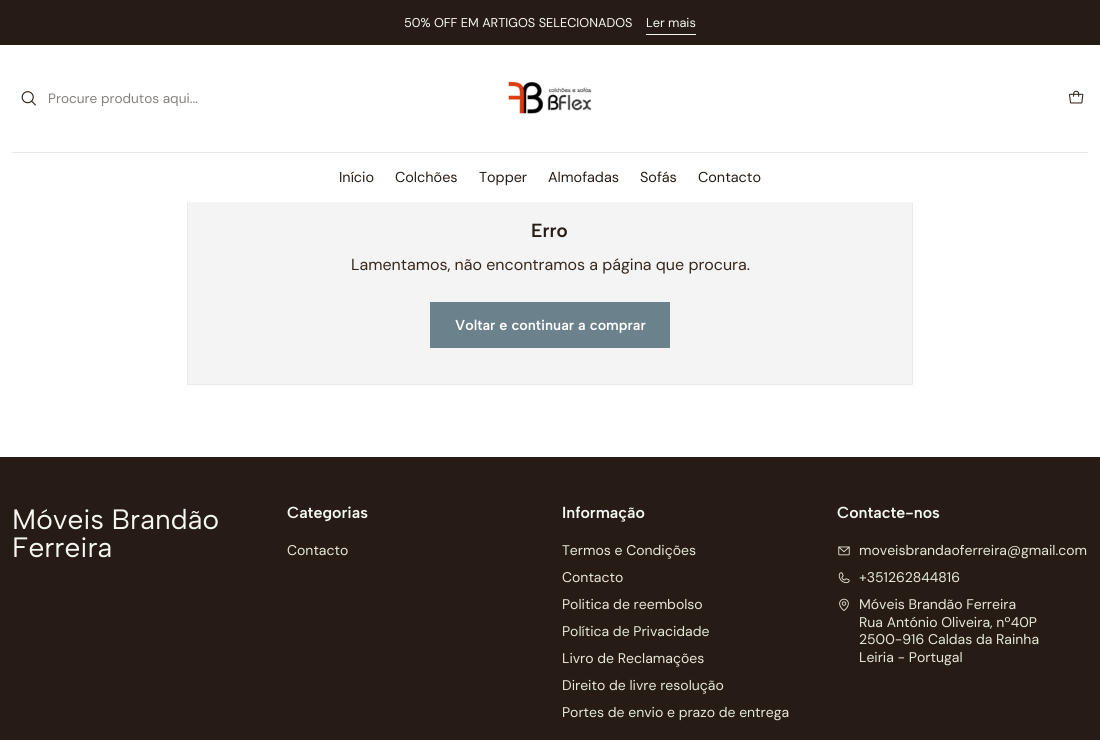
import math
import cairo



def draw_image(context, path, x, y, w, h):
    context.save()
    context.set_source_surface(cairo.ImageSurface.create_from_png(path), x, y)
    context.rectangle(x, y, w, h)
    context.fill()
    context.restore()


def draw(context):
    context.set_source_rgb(1, 1, 1)
    context.paint()
    context.set_source_rgb(38 / 255, 28 / 255, 21 / 255)
    context.rectangle(0, 0, 1100, 45)
    context.fill()
    context.set_source_rgb(247 / 255, 247 / 255, 242 / 255)
    context.rectangle(646, 34, 50, 1)
    context.fill()
    context.set_source_rgb(245 / 255, 244 / 255, 244 / 255)
    context.rectangle(188, 202, 724, 182)
    context.fill()
    context.rectangle(187.5, 184.5, 725, 200)
    context.set_source_rgb(235 / 255, 233 / 255, 233 / 255)
    context.set_line_width(1)
    context.stroke()
    context.set_source_rgb(1, 1, 1)
    context.rectangle(187, 184, 726, 18)
    context.fill()
    draw_image(context, "images/1.png", 21, 91, 15, 15)
    draw_image(context, "images/2.png", 508, 81, 84, 33)
    draw_image(context, "images/3.png", 1069, 90, 15, 14)
    context.set_source_rgb(233 / 255, 232 / 255, 232 / 255)
    context.rectangle(12, 152, 1076, 1)
    context.fill()
    context.set_source_rgb(107 / 255, 129 / 255, 140 / 255)
    context.rectangle(430, 302, 240, 46)
    context.fill()
    context.set_source_rgb(38 / 255, 28 / 255, 21 / 255)
    context.rectangle(0, 457, 1100, 283)
    context.fill()
    draw_image(context, "images/4.png", 838, 546, 12, 10)
    draw_image(context, "images/5.png", 838, 572, 12, 12)
    draw_image(context, "images/6.png", 839, 598, 10, 13)
    context.select_font_face("DM Sans")
    context.set_font_size(12.75)
    context.set_source_rgb(247 / 255, 247 / 255, 242 / 255)
    context.move_to(404, 27)
    context.show_text("50% OFF EM ARTIGOS SELECIONADOS")
    context.move_to(646, 27)
    context.show_text("Ler mais")
    context.set_font_size(13.6)
    context.set_source_rgb(133 / 255, 128 / 255, 124 / 255)
    context.move_to(48, 103)
    context.show_text("Procure produtos aqui...")
    context.set_font_size(14.4)
    context.set_source_rgb(38 / 255, 28 / 255, 21 / 255)
    context.move_to(339, 182)
    context.show_text("Início")
    context.move_to(395, 182)
    context.show_text("Colchões")
    context.move_to(479, 182)
    context.show_text("Topper")
    context.move_to(548, 182)
    context.show_text("Almofadas")
    context.move_to(640, 182)
    context.show_text("Sofás")
    context.move_to(698, 182)
    context.show_text("Contacto")
    context.select_font_face("Albert Sans SemiBold")
    context.set_font_size(19)
    context.move_to(531, 237)
    context.show_text("Erro")
    context.select_font_face("DM Sans")
    context.set_font_size(16)
    context.set_source_rgb(53 / 255, 39 / 255, 29 / 255)
    context.move_to(351, 270)
    context.show_text("Lamentamos, não encontramos a página que procura.")
    context.select_font_face("Albert Sans SemiBold")
    context.set_font_size(14.4)
    context.set_source_rgb(1, 1, 1)
    context.move_to(455, 330)
    context.show_text("Voltar e continuar a comprar")
    context.select_font_face("Albert Sans")
    context.set_font_size(28)
    context.set_source_rgb(247 / 255, 247 / 255, 242 / 255)
    context.move_to(12, 529)
    context.show_text("Móveis Brandão")
    context.move_to(12, 557)
    context.show_text("Ferreira")
    context.select_font_face("Albert Sans SemiBold")
    context.set_font_size(16)
    context.move_to(287, 518)
    context.show_text("Categorias")
    context.select_font_face("DM Sans")
    context.set_font_size(14)
    context.set_source_rgb(232 / 255, 232 / 255, 217 / 255)
    context.move_to(287, 555)
    context.show_text("Contacto")
    context.select_font_face("Albert Sans SemiBold")
    context.set_font_size(16)
    context.set_source_rgb(247 / 255, 247 / 255, 242 / 255)
    context.move_to(562, 518)
    context.show_text("Informação")
    context.select_font_face("DM Sans")
    context.set_font_size(14)
    context.set_source_rgb(232 / 255, 232 / 255, 217 / 255)
    context.move_to(562, 555)
    context.show_text("Termos e Condições")
    context.move_to(562, 582)
    context.show_text("Contacto")
    context.move_to(562, 609)
    context.show_text("Politica de reembolso")
    context.move_to(562, 636)
    context.show_text("Política de Privacidade")
    context.move_to(562, 663)
    context.show_text("Livro de Reclamações")
    context.move_to(562, 690)
    context.show_text("Direito de livre resolução")
    context.move_to(562, 717)
    context.show_text("Portes de envio e prazo de entrega")
    context.select_font_face("Albert Sans SemiBold")
    context.set_font_size(16)
    context.set_source_rgb(247 / 255, 247 / 255, 242 / 255)
    context.move_to(837, 518)
    context.show_text("Contacte-nos")
    context.select_font_face("DM Sans")
    context.set_font_size(14)
    context.set_source_rgb(232 / 255, 232 / 255, 217 / 255)
    context.move_to(859, 555)
    context.show_text("moveisbrandaoferreira@gmail.com")
    context.move_to(859, 582)
    context.show_text("+351262844816")
    context.move_to(859, 609)
    context.show_text("Móveis Brandão Ferreira")
    context.move_to(859, 627)
    context.show_text("Rua António Oliveira, nº40P")
    context.move_to(859, 644)
    context.show_text("2500-916 Caldas da Rainha")
    context.move_to(859, 662)
    context.show_text("Leiria - Portugal")


surface = cairo.ImageSurface(cairo.Format.RGB24, 1100, 740)
context = cairo.Context(surface)
options = cairo.FontOptions()
options.set_hint_metrics(cairo.HintMetrics.OFF)
options.set_hint_style(cairo.HintStyle.NONE)
context.set_font_options(options)
context.set_miter_limit(4)
draw(context)
surface.write_to_png("out.png")
